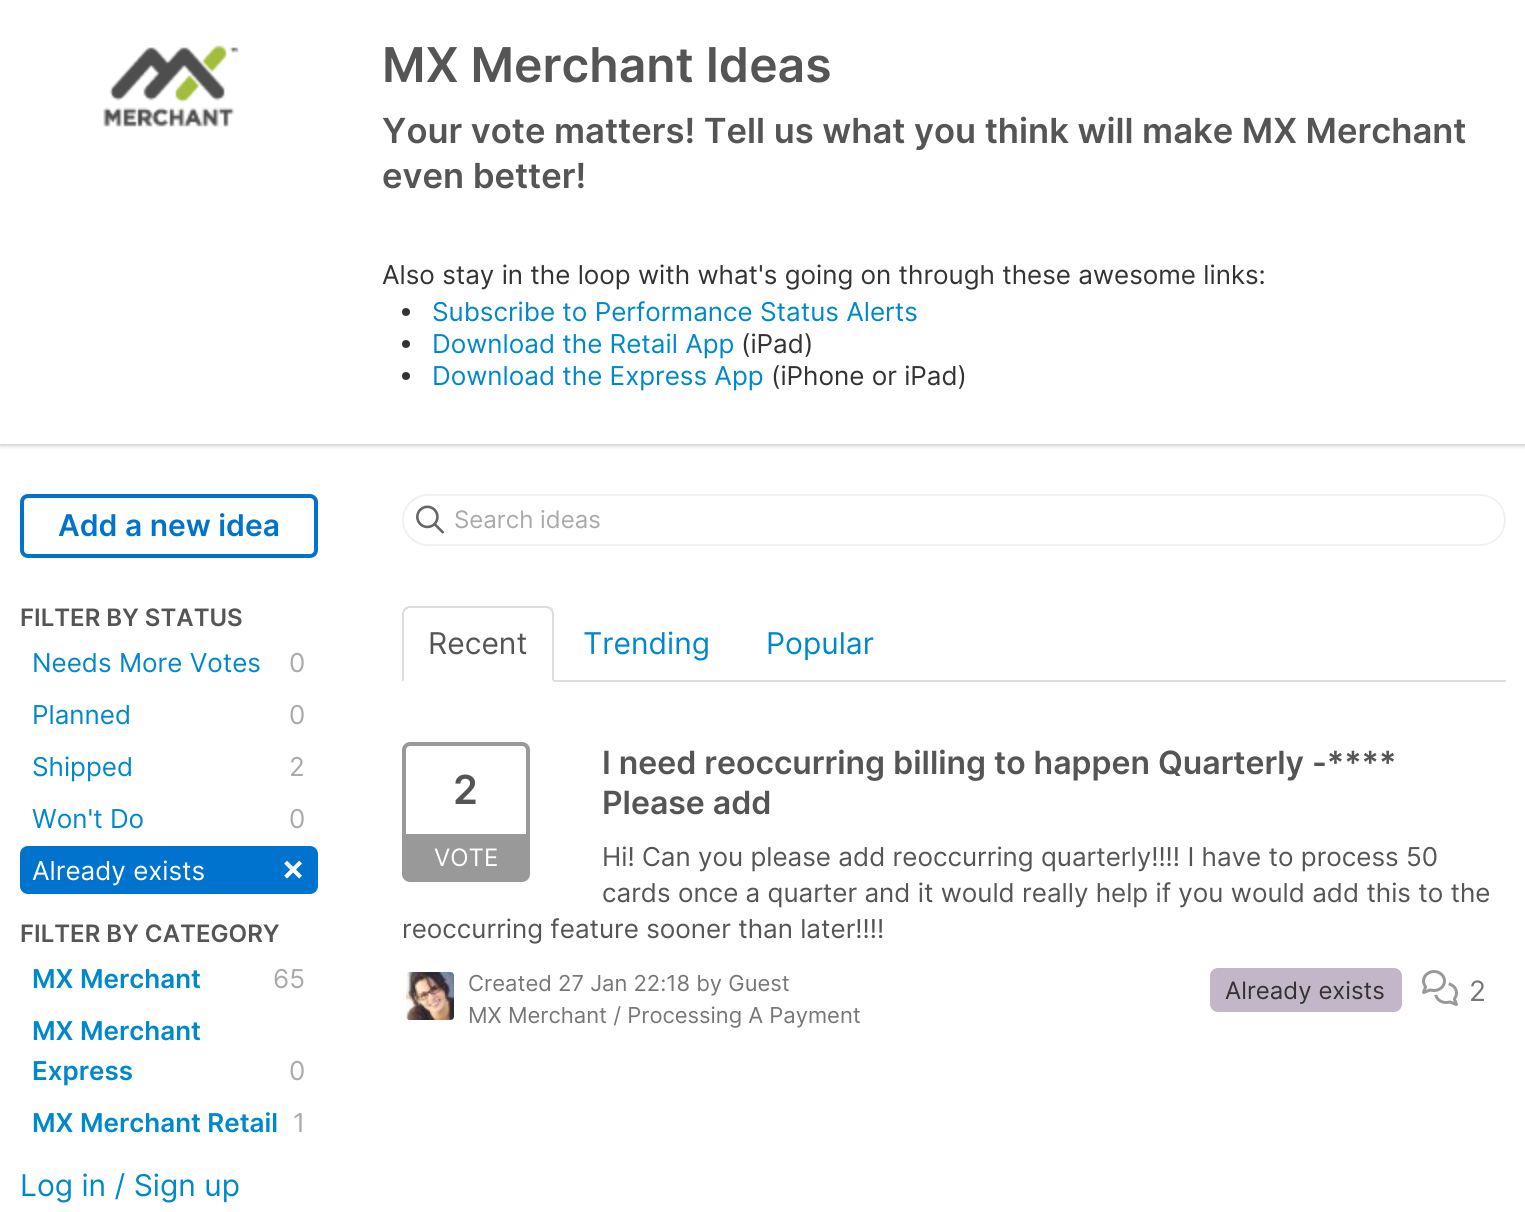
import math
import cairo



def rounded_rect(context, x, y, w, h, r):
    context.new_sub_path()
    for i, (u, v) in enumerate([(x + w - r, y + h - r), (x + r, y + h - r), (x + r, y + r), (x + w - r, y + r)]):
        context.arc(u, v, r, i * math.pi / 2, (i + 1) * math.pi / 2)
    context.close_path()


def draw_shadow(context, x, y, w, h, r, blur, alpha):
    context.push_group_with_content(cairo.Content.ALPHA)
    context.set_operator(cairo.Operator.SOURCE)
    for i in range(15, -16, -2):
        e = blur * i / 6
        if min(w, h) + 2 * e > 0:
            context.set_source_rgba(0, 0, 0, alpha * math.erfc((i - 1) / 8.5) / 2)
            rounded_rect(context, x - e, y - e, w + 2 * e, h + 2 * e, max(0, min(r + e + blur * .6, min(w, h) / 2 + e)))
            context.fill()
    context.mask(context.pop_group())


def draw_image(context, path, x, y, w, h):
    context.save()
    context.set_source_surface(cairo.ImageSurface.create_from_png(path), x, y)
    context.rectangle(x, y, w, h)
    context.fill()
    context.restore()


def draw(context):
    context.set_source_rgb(1, 1, 1)
    context.paint()
    context.save()
    context.rectangle(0, 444, 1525, 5)
    context.clip()
    context.set_source_rgb(0, 0, 0)
    draw_shadow(context, 0, 2, 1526, 444, 0, 2, 0.2)
    context.restore()
    draw_image(context, "images/1.png", 103, 45, 136, 82)
    context.set_source_rgb(51 / 255, 51 / 255, 51 / 255)
    context.arc(406, 312, 4, 0, 2 * math.pi)
    context.fill()
    context.arc(406, 344, 4, 0, 2 * math.pi)
    context.fill()
    context.arc(406, 376, 4, 0, 2 * math.pi)
    context.fill()
    rounded_rect(context, 22, 496, 294, 60, 6)
    context.set_source_rgb(1 / 255, 115 / 255, 207 / 255)
    context.set_line_width(4)
    context.stroke()
    context.set_source_rgb(0, 115 / 255, 207 / 255)
    rounded_rect(context, 20, 846, 298, 48, 8)
    context.fill()
    rounded_rect(context, 403, 495, 1102, 50, 25)
    context.set_source_rgb(241 / 255, 241 / 255, 241 / 255)
    context.set_line_width(2)
    context.stroke()
    draw_image(context, "images/2.png", 416, 505, 28, 29)
    context.set_source_rgb(221 / 255, 221 / 255, 221 / 255)
    context.rectangle(554, 680, 952, 2)
    context.fill()
    context.new_path()
    context.move_to(410, 606)
    context.curve_to(408, 606, 406, 607, 404, 608)
    context.line_to(406, 610)
    context.line_to(409, 608)
    context.line_to(547, 608)
    context.line_to(550, 610)
    context.line_to(552, 608)
    context.curve_to(550, 607, 548, 606, 546, 606)
    context.close_path()
    context.fill()
    context.new_path()
    context.move_to(554, 682)
    context.line_to(554, 614)
    context.curve_to(554, 612, 553, 610, 552, 608)
    context.line_to(550, 610)
    context.curve_to(551, 611, 552, 612, 552, 614)
    context.line_to(552, 680)
    context.close_path()
    context.fill()
    context.new_path()
    context.move_to(402, 682)
    context.line_to(404, 680)
    context.line_to(404, 614)
    context.curve_to(404, 612, 405, 611, 406, 610)
    context.line_to(404, 608)
    context.curve_to(403, 610, 402, 612, 402, 614)
    context.close_path()
    context.fill()
    draw_image(context, "images/3.png", 406, 972, 48, 48)
    context.set_source_rgb(194 / 255, 183 / 255, 200 / 255)
    rounded_rect(context, 1210, 968, 192, 44, 8)
    context.fill()
    draw_image(context, "images/4.png", 1422, 970, 36, 36)
    rounded_rect(context, 404, 744, 124, 136, 6)
    context.set_source_rgb(153 / 255, 153 / 255, 153 / 255)
    context.set_line_width(4)
    context.stroke()
    context.rectangle(406, 834, 120, 44)
    context.fill()
    context.select_font_face("Inter SemiBold")
    context.set_font_size(48)
    context.set_source_rgb(85 / 255, 85 / 255, 85 / 255)
    context.move_to(382, 82)
    context.show_text("MX Merchant Ideas")
    context.set_font_size(34.6)
    context.move_to(382, 143)
    context.show_text("Your vote matters! Tell us what you think will make MX Merchant")
    context.move_to(382, 188)
    context.show_text("even better!")
    context.select_font_face("Inter")
    context.set_font_size(26)
    context.set_source_rgb(51 / 255, 51 / 255, 51 / 255)
    context.move_to(382, 284)
    context.show_text("Also stay in the loop with what's going on through these awesome links:")
    context.set_source_rgb(0, 136 / 255, 204 / 255)
    context.move_to(432, 321)
    context.show_text("Subscribe to Performance Status Alerts")
    context.move_to(432, 353)
    context.show_text("Download the Retail App")
    context.set_source_rgb(51 / 255, 51 / 255, 51 / 255)
    context.move_to(741, 353)
    context.show_text("(iPad)")
    context.set_source_rgb(0, 136 / 255, 204 / 255)
    context.move_to(432, 385)
    context.show_text("Download the Express App")
    context.set_source_rgb(51 / 255, 51 / 255, 51 / 255)
    context.move_to(771, 385)
    context.show_text("(iPhone or iPad)")
    context.select_font_face("Inter SemiBold")
    context.set_font_size(30)
    context.set_source_rgb(1 / 255, 115 / 255, 207 / 255)
    context.move_to(58, 536)
    context.show_text("Add a new idea")
    context.set_font_size(24)
    context.set_source_rgb(85 / 255, 85 / 255, 85 / 255)
    context.move_to(20, 626)
    context.show_text("FILTER BY STATUS")
    context.select_font_face("Inter")
    context.set_font_size(26)
    context.set_source_rgb(0, 136 / 255, 204 / 255)
    context.move_to(32, 672)
    context.show_text("Needs More Votes")
    context.set_source_rgb(170 / 255, 170 / 255, 170 / 255)
    context.move_to(289, 672)
    context.show_text("0")
    context.set_source_rgb(0, 136 / 255, 204 / 255)
    context.move_to(32, 724)
    context.show_text("Planned")
    context.set_source_rgb(170 / 255, 170 / 255, 170 / 255)
    context.move_to(289, 724)
    context.show_text("0")
    context.set_source_rgb(0, 136 / 255, 204 / 255)
    context.move_to(32, 776)
    context.show_text("Shipped")
    context.set_source_rgb(170 / 255, 170 / 255, 170 / 255)
    context.move_to(289, 776)
    context.show_text("2")
    context.set_source_rgb(0, 136 / 255, 204 / 255)
    context.move_to(32, 828)
    context.show_text("Won't Do")
    context.set_source_rgb(170 / 255, 170 / 255, 170 / 255)
    context.move_to(289, 828)
    context.show_text("0")
    context.set_source_rgb(1, 1, 1)
    context.move_to(32, 880)
    context.show_text("Already exists")
    context.select_font_face("Inter SemiBold")
    context.set_font_size(36)
    context.move_to(281, 880)
    context.show_text("×")
    context.set_font_size(24)
    context.set_source_rgb(85 / 255, 85 / 255, 85 / 255)
    context.move_to(20, 942)
    context.show_text("FILTER BY CATEGORY")
    context.set_font_size(26)
    context.set_source_rgb(0, 136 / 255, 204 / 255)
    context.move_to(32, 988)
    context.show_text("MX Merchant")
    context.select_font_face("Inter")
    context.set_source_rgb(170 / 255, 170 / 255, 170 / 255)
    context.move_to(273, 988)
    context.show_text("65")
    context.select_font_face("Inter SemiBold")
    context.set_source_rgb(0, 136 / 255, 204 / 255)
    context.move_to(32, 1040)
    context.show_text("MX Merchant")
    context.move_to(32, 1080)
    context.show_text("Express")
    context.select_font_face("Inter")
    context.set_source_rgb(170 / 255, 170 / 255, 170 / 255)
    context.move_to(289, 1080)
    context.show_text("0")
    context.select_font_face("Inter SemiBold")
    context.set_source_rgb(0, 136 / 255, 204 / 255)
    context.move_to(32, 1132)
    context.show_text("MX Merchant Retail")
    context.select_font_face("Inter")
    context.set_source_rgb(170 / 255, 170 / 255, 170 / 255)
    context.move_to(293, 1132)
    context.show_text("1")
    context.set_font_size(30)
    context.set_source_rgb(0, 136 / 255, 204 / 255)
    context.move_to(20, 1196)
    context.show_text("Log in / Sign up")
    context.set_font_size(24)
    context.set_source_rgb(170 / 255, 170 / 255, 170 / 255)
    context.move_to(454, 528)
    context.show_text("Search ideas")
    context.set_font_size(30)
    context.set_source_rgb(85 / 255, 85 / 255, 85 / 255)
    context.move_to(428, 654)
    context.show_text("Recent")
    context.set_source_rgb(0, 136 / 255, 204 / 255)
    context.move_to(583, 654)
    context.show_text("Trending")
    context.move_to(766, 654)
    context.show_text("Popular")
    context.select_font_face("Inter SemiBold")
    context.set_font_size(32)
    context.set_source_rgb(85 / 255, 85 / 255, 85 / 255)
    context.move_to(602, 774)
    context.show_text("I need reoccurring billing to happen Quarterly -****")
    context.move_to(602, 814)
    context.show_text("Please add")
    context.select_font_face("Inter")
    context.set_font_size(26)
    context.move_to(602, 866)
    context.show_text("Hi! Can you please add reoccurring quarterly!!!! I have to process 50")
    context.move_to(602, 902)
    context.show_text("cards once a quarter and it would really help if you would add this to the")
    context.move_to(402, 938)
    context.show_text("reoccurring feature sooner than later!!!!")
    context.set_font_size(22)
    context.set_source_rgb(119 / 255, 119 / 255, 119 / 255)
    context.move_to(468, 991)
    context.show_text("Created 27 Jan 22:18 by Guest")
    context.move_to(468, 1023)
    context.show_text("MX Merchant / Processing A Payment")
    context.set_font_size(24)
    context.set_source_rgb(51 / 255, 51 / 255, 51 / 255)
    context.move_to(1225, 999)
    context.show_text("Already exists")
    context.set_font_size(28)
    context.set_source_rgb(119 / 255, 119 / 255, 119 / 255)
    context.move_to(1469, 1001)
    context.show_text("2")
    context.select_font_face("Inter SemiBold")
    context.set_font_size(40)
    context.set_source_rgb(85 / 255, 85 / 255, 85 / 255)
    context.move_to(453, 804)
    context.show_text("2")
    context.select_font_face("Inter")
    context.set_font_size(24)
    context.set_source_rgb(1, 1, 1)
    context.move_to(434, 866)
    context.show_text("VOTE")


surface = cairo.ImageSurface(cairo.Format.RGB24, 1525, 1212)
context = cairo.Context(surface)
options = cairo.FontOptions()
options.set_hint_metrics(cairo.HintMetrics.OFF)
options.set_hint_style(cairo.HintStyle.NONE)
context.set_font_options(options)
context.set_miter_limit(4)
draw(context)
surface.write_to_png("out.png")
